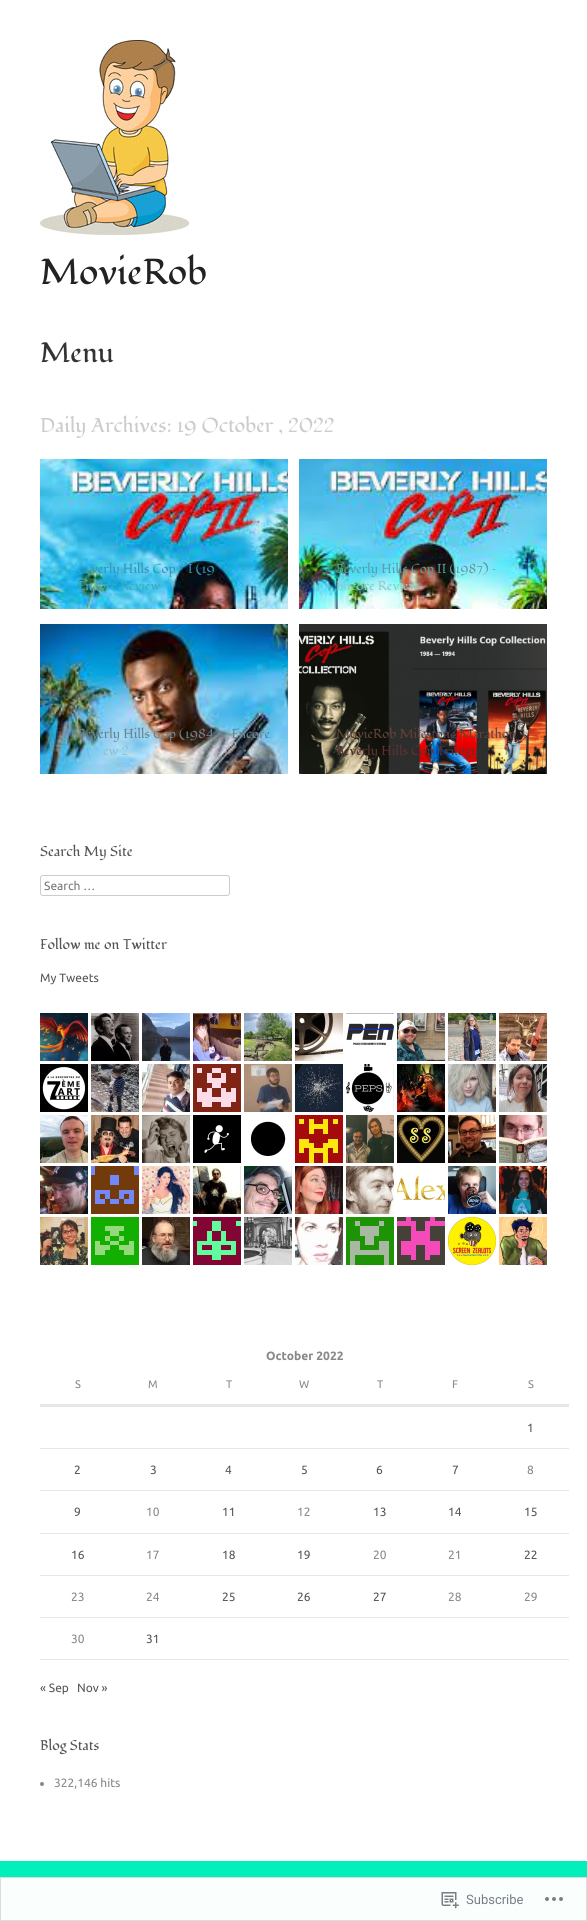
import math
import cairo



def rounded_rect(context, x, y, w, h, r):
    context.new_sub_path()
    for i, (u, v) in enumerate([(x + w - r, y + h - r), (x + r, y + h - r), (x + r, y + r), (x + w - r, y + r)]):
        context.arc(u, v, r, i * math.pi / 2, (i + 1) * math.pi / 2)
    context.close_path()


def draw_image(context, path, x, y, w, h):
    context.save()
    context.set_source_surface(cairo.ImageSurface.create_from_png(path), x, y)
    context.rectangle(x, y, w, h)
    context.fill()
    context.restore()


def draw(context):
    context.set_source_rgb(0, 239 / 255, 187 / 255)
    context.paint()
    context.set_source_rgb(1, 1, 1)
    context.rectangle(0, 0, 587, 1861)
    context.fill()
    draw_image(context, "images/1.png", 40, 40, 149, 195)
    draw_image(context, "images/2.png", 40, 459, 248, 150)
    draw_image(context, "images/3.png", 299, 459, 248, 150)
    draw_image(context, "images/4.png", 40, 624, 248, 150)
    draw_image(context, "images/5.png", 299, 624, 248, 150)
    rounded_rect(context, 40.5, 875.5, 189, 20, 2.5)
    context.set_source_rgb(204 / 255, 204 / 255, 204 / 255)
    context.set_line_width(1)
    context.stroke()
    draw_image(context, "images/6.png", 40, 1013, 48, 48)
    draw_image(context, "images/7.png", 91, 1013, 48, 48)
    draw_image(context, "images/8.png", 142, 1013, 48, 48)
    draw_image(context, "images/9.png", 193, 1013, 48, 48)
    draw_image(context, "images/10.png", 244, 1013, 48, 48)
    draw_image(context, "images/11.png", 295, 1013, 48, 48)
    draw_image(context, "images/12.png", 346, 1013, 48, 32)
    draw_image(context, "images/13.png", 397, 1013, 48, 48)
    draw_image(context, "images/14.png", 448, 1013, 48, 48)
    draw_image(context, "images/15.png", 499, 1013, 48, 48)
    draw_image(context, "images/16.png", 40, 1064, 48, 48)
    draw_image(context, "images/17.png", 91, 1064, 48, 48)
    draw_image(context, "images/18.png", 142, 1064, 48, 48)
    draw_image(context, "images/19.png", 193, 1064, 48, 48)
    draw_image(context, "images/20.png", 244, 1064, 48, 48)
    draw_image(context, "images/21.png", 295, 1064, 48, 48)
    draw_image(context, "images/22.png", 346, 1064, 48, 48)
    draw_image(context, "images/23.png", 397, 1064, 48, 48)
    draw_image(context, "images/24.png", 448, 1064, 48, 48)
    draw_image(context, "images/25.png", 499, 1064, 48, 48)
    draw_image(context, "images/26.png", 40, 1115, 48, 48)
    draw_image(context, "images/27.png", 91, 1115, 48, 48)
    draw_image(context, "images/28.png", 142, 1115, 48, 48)
    draw_image(context, "images/29.png", 193, 1115, 48, 48)
    draw_image(context, "images/30.png", 250, 1121, 36, 36)
    draw_image(context, "images/31.png", 295, 1115, 48, 48)
    draw_image(context, "images/32.png", 346, 1115, 48, 48)
    draw_image(context, "images/33.png", 397, 1115, 48, 48)
    draw_image(context, "images/34.png", 448, 1115, 48, 48)
    draw_image(context, "images/35.png", 499, 1115, 48, 48)
    draw_image(context, "images/36.png", 40, 1166, 48, 48)
    draw_image(context, "images/37.png", 91, 1166, 48, 48)
    draw_image(context, "images/38.png", 142, 1166, 48, 48)
    draw_image(context, "images/39.png", 193, 1166, 48, 48)
    draw_image(context, "images/40.png", 244, 1166, 48, 48)
    draw_image(context, "images/41.png", 295, 1166, 48, 48)
    draw_image(context, "images/42.png", 346, 1166, 48, 48)
    draw_image(context, "images/43.png", 397, 1175, 48, 25)
    draw_image(context, "images/44.png", 448, 1166, 48, 48)
    draw_image(context, "images/45.png", 499, 1166, 48, 48)
    draw_image(context, "images/46.png", 40, 1217, 48, 48)
    draw_image(context, "images/47.png", 91, 1217, 48, 48)
    draw_image(context, "images/48.png", 142, 1217, 48, 48)
    draw_image(context, "images/49.png", 193, 1217, 48, 48)
    draw_image(context, "images/50.png", 244, 1217, 48, 48)
    draw_image(context, "images/51.png", 295, 1217, 48, 48)
    draw_image(context, "images/52.png", 346, 1217, 48, 48)
    draw_image(context, "images/53.png", 397, 1217, 48, 48)
    draw_image(context, "images/54.png", 448, 1217, 48, 48)
    draw_image(context, "images/55.png", 499, 1217, 48, 48)
    context.set_source_rgb(231 / 255, 231 / 255, 231 / 255)
    context.rectangle(40, 1404, 529, 3)
    context.fill()
    context.rectangle(40, 1448, 529, 1)
    context.fill()
    context.rectangle(40, 1490, 529, 1)
    context.fill()
    context.rectangle(40, 1533, 529, 1)
    context.fill()
    context.rectangle(40, 1575, 529, 1)
    context.fill()
    context.rectangle(40, 1617, 529, 1)
    context.fill()
    context.rectangle(40, 1659, 529, 1)
    context.fill()
    context.set_source_rgb(136 / 255, 136 / 255, 136 / 255)
    context.arc(42, 1784, 2, 0, 2 * math.pi)
    context.fill()
    context.set_source_rgb(250 / 255, 1, 254 / 255)
    context.rectangle(0.5, 1877.5, 586, 43)
    context.fill_preserve()
    context.set_source_rgb(216 / 255, 220 / 255, 221 / 255)
    context.stroke()
    draw_image(context, "images/56.png", 441, 1892, 18, 17)
    draw_image(context, "images/57.png", 545, 1897, 18, 4)
    context.select_font_face("Fondamento")
    context.set_font_size(36)
    context.set_source_rgb(34 / 255, 34 / 255, 34 / 255)
    context.move_to(40, 284)
    context.show_text("MovieRob")
    context.set_font_size(28)
    context.set_source_rgb(51 / 255, 51 / 255, 51 / 255)
    context.move_to(40, 362)
    context.show_text("Menu")
    context.set_font_size(20)
    context.set_source_rgb(204 / 255, 204 / 255, 204 / 255)
    context.move_to(40, 432)
    context.show_text("Daily Archives: 19 October , 2022")
    context.set_font_size(13)
    context.set_source_rgb(54 / 255, 150 / 255, 181 / 255)
    context.move_to(91, 573)
    context.show_text("verly Hills Cop")
    context.move_to(188, 573)
    context.show_text("I (19")
    context.move_to(241, 573)
    context.show_text("–")
    context.set_source_rgb(58 / 255, 173 / 255, 195 / 255)
    context.move_to(78, 590)
    context.show_text("Encore Review")
    context.set_source_rgb(90 / 255, 158 / 255, 163 / 255)
    context.move_to(336, 573)
    context.show_text("Beverly Hills Cop II (1987) –")
    context.set_source_rgb(143 / 255, 205 / 255, 194 / 255)
    context.move_to(336, 590)
    context.show_text("Encore Review")
    context.set_source_rgb(107 / 255, 131 / 255, 142 / 255)
    context.move_to(78, 738)
    context.show_text("Beverly Hills Cop (1984) – Encore")
    context.set_source_rgb(134 / 255, 193 / 255, 222 / 255)
    context.move_to(103, 755)
    context.show_text("ew 2")
    context.set_source_rgb(97 / 255, 65 / 255, 55 / 255)
    context.move_to(336, 738)
    context.show_text("MovieRob Milestone Marathon –")
    context.set_source_rgb(95 / 255, 48 / 255, 47 / 255)
    context.move_to(336, 755)
    context.show_text("Beverly Hills Cop Trilogy")
    context.set_font_size(14)
    context.set_source_rgb(85 / 255, 85 / 255, 85 / 255)
    context.move_to(40, 856)
    context.show_text("Search My Site")
    context.select_font_face("Ubuntu")
    context.set_font_size(12)
    context.set_source_rgb(117 / 255, 117 / 255, 117 / 255)
    context.move_to(44, 890)
    context.show_text("Search …")
    context.select_font_face("Fondamento")
    context.set_font_size(14)
    context.set_source_rgb(85 / 255, 85 / 255, 85 / 255)
    context.move_to(40, 949)
    context.show_text("Follow me on Twitter")
    context.select_font_face("Ubuntu")
    context.set_font_size(12)
    context.move_to(40, 982)
    context.show_text("My Tweets")
    context.select_font_face("Ubuntu", cairo.FontSlant.NORMAL, cairo.FontWeight.BOLD)
    context.set_source_rgb(136 / 255, 136 / 255, 136 / 255)
    context.move_to(266, 1360)
    context.show_text("October 2022")
    context.select_font_face("Ubuntu")
    context.set_font_size(11)
    context.move_to(75, 1388)
    context.show_text("S")
    context.move_to(148, 1388)
    context.show_text("M")
    context.move_to(226, 1388)
    context.show_text("T")
    context.move_to(299, 1388)
    context.show_text("W")
    context.move_to(377, 1388)
    context.show_text("T")
    context.move_to(452, 1388)
    context.show_text("F")
    context.move_to(528, 1388)
    context.show_text("S")
    context.set_font_size(12)
    context.set_source_rgb(85 / 255, 85 / 255, 85 / 255)
    context.move_to(527, 1432)
    context.show_text("1")
    context.move_to(74, 1474)
    context.show_text("2")
    context.move_to(150, 1474)
    context.show_text("3")
    context.move_to(225, 1474)
    context.show_text("4")
    context.move_to(301, 1474)
    context.show_text("5")
    context.move_to(376, 1474)
    context.show_text("6")
    context.move_to(452, 1474)
    context.show_text("7")
    context.set_source_rgb(136 / 255, 136 / 255, 136 / 255)
    context.move_to(527, 1474)
    context.show_text("8")
    context.set_source_rgb(85 / 255, 85 / 255, 85 / 255)
    context.move_to(74, 1516)
    context.show_text("9")
    context.set_source_rgb(136 / 255, 136 / 255, 136 / 255)
    context.move_to(146, 1516)
    context.show_text("10")
    context.set_source_rgb(85 / 255, 85 / 255, 85 / 255)
    context.move_to(222, 1516)
    context.show_text("11")
    context.set_source_rgb(136 / 255, 136 / 255, 136 / 255)
    context.move_to(297, 1516)
    context.show_text("12")
    context.set_source_rgb(85 / 255, 85 / 255, 85 / 255)
    context.move_to(373, 1516)
    context.show_text("13")
    context.move_to(448, 1516)
    context.show_text("14")
    context.move_to(524, 1516)
    context.show_text("15")
    context.move_to(71, 1559)
    context.show_text("16")
    context.set_source_rgb(136 / 255, 136 / 255, 136 / 255)
    context.move_to(146, 1559)
    context.show_text("17")
    context.set_source_rgb(85 / 255, 85 / 255, 85 / 255)
    context.move_to(222, 1559)
    context.show_text("18")
    context.move_to(297, 1559)
    context.show_text("19")
    context.set_source_rgb(136 / 255, 136 / 255, 136 / 255)
    context.move_to(373, 1559)
    context.show_text("20")
    context.move_to(448, 1559)
    context.show_text("21")
    context.set_source_rgb(85 / 255, 85 / 255, 85 / 255)
    context.move_to(524, 1559)
    context.show_text("22")
    context.set_source_rgb(136 / 255, 136 / 255, 136 / 255)
    context.move_to(71, 1601)
    context.show_text("23")
    context.move_to(146, 1601)
    context.show_text("24")
    context.set_source_rgb(85 / 255, 85 / 255, 85 / 255)
    context.move_to(222, 1601)
    context.show_text("25")
    context.move_to(297, 1601)
    context.show_text("26")
    context.move_to(373, 1601)
    context.show_text("27")
    context.set_source_rgb(136 / 255, 136 / 255, 136 / 255)
    context.move_to(448, 1601)
    context.show_text("28")
    context.move_to(524, 1601)
    context.show_text("29")
    context.move_to(71, 1643)
    context.show_text("30")
    context.set_source_rgb(85 / 255, 85 / 255, 85 / 255)
    context.move_to(146, 1643)
    context.show_text("31")
    context.move_to(40, 1692)
    context.show_text("« Sep")
    context.move_to(77, 1692)
    context.show_text("Nov »")
    context.select_font_face("Fondamento")
    context.set_font_size(14)
    context.move_to(40, 1750)
    context.show_text("Blog Stats")
    context.select_font_face("Ubuntu")
    context.set_font_size(12)
    context.set_source_rgb(136 / 255, 136 / 255, 136 / 255)
    context.move_to(54, 1787)
    context.show_text("322,146 hits")
    context.select_font_face("Roboto")
    context.set_font_size(13)
    context.set_source_rgb(118 / 255, 126 / 255, 131 / 255)
    context.move_to(466, 1904)
    context.show_text("Subscribe")


surface = cairo.ImageSurface(cairo.Format.RGB24, 587, 1921)
context = cairo.Context(surface)
options = cairo.FontOptions()
options.set_hint_metrics(cairo.HintMetrics.OFF)
options.set_hint_style(cairo.HintStyle.NONE)
context.set_font_options(options)
context.set_miter_limit(4)
draw(context)
surface.write_to_png("out.png")
